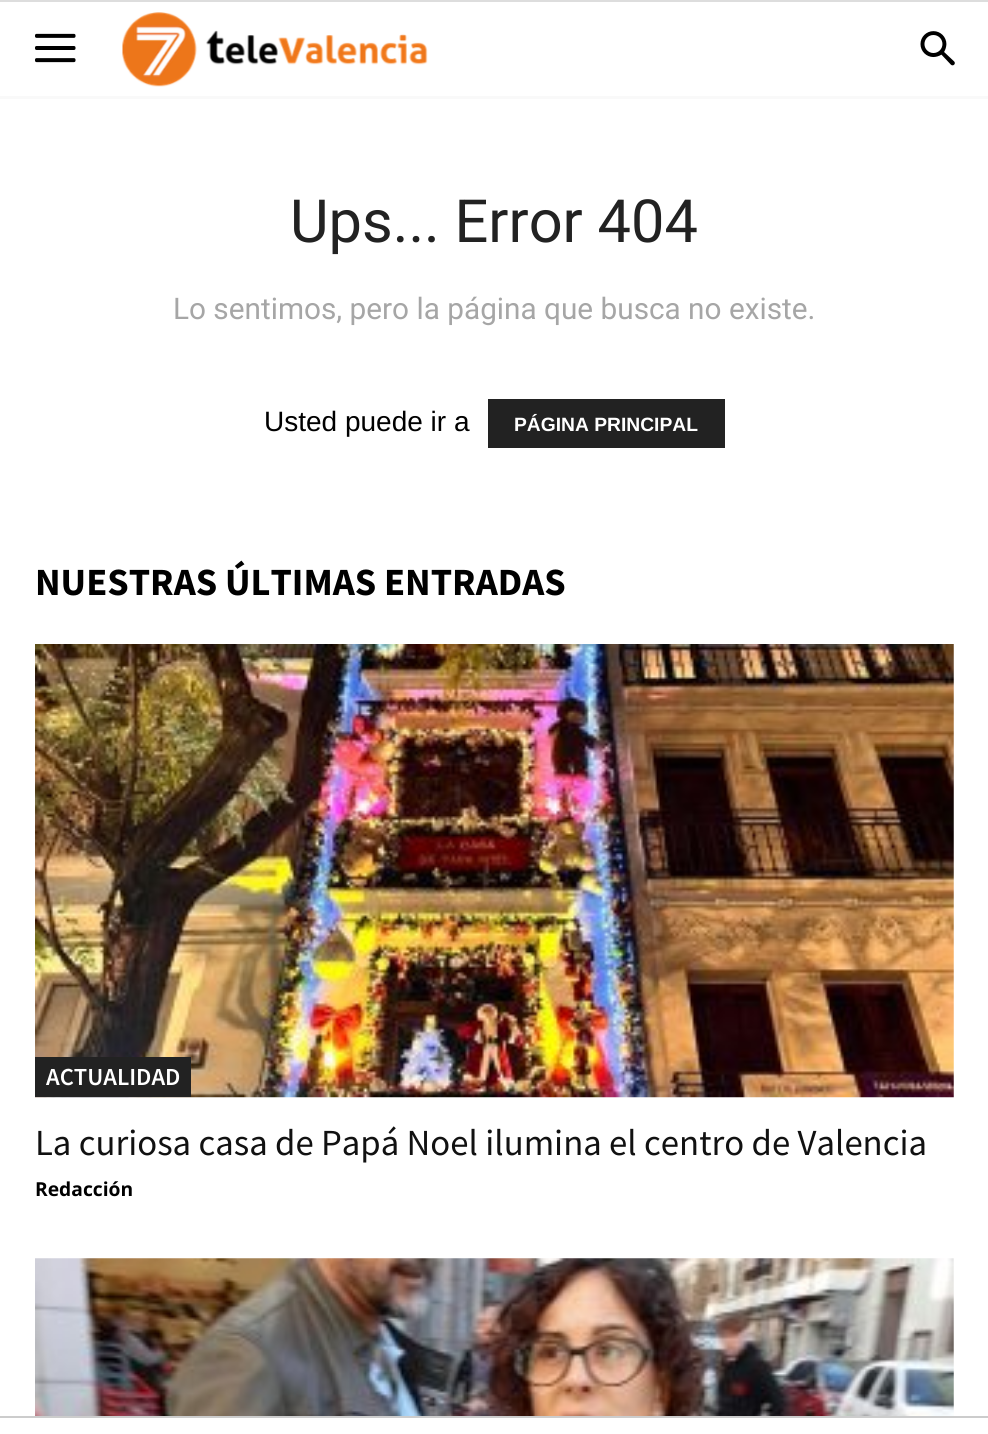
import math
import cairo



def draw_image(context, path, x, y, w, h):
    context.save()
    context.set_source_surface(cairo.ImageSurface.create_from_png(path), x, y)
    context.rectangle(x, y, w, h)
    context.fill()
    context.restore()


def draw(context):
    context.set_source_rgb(1, 1, 1)
    context.paint()
    context.set_source_rgb(221 / 255, 221 / 255, 221 / 255)
    context.rectangle(0, 0, 988, 2)
    context.fill()
    draw_image(context, "images/1.png", 35, 33, 41, 30)
    draw_image(context, "images/2.png", 122, 12, 306, 75)
    draw_image(context, "images/3.png", 920, 31, 35, 35)
    draw_image(context, "images/4.png", 0, 96, 988, 3)
    context.set_source_rgb(34 / 255, 34 / 255, 34 / 255)
    context.rectangle(488, 399, 237, 49)
    context.fill()
    draw_image(context, "images/5.png", 35, 644, 919, 454)
    context.rectangle(35, 1057, 156, 40)
    context.fill()
    draw_image(context, "images/6.png", 35, 1258, 919, 158)
    context.set_source_rgb(204 / 255, 204 / 255, 204 / 255)
    context.rectangle(0, 1416, 988, 2)
    context.fill()
    context.select_font_face("Roboto")
    context.set_font_size(59.5)
    context.set_source_rgb(34 / 255, 34 / 255, 34 / 255)
    context.move_to(290, 242)
    context.show_text("Ups... Error 404")
    context.set_font_size(29.75)
    context.set_source_rgb(166 / 255, 166 / 255, 166 / 255)
    context.move_to(173, 319)
    context.show_text("Lo sentimos, pero la página que busca no existe.")
    context.select_font_face("Liberation Sans")
    context.set_font_size(28)
    context.set_source_rgb(0, 0, 0)
    context.move_to(264, 431)
    context.show_text("Usted puede ir a")
    context.select_font_face("Liberation Sans", cairo.FontSlant.NORMAL, cairo.FontWeight.BOLD)
    context.set_font_size(19.25)
    context.set_source_rgb(1, 1, 1)
    context.move_to(514, 431)
    context.show_text("PÁGINA PRINCIPAL")
    context.select_font_face("Source Sans Pro", cairo.FontSlant.NORMAL, cairo.FontWeight.BOLD)
    context.set_font_size(38.5)
    context.set_source_rgb(0, 0, 0)
    context.move_to(35, 595)
    context.show_text("NUESTRAS ÚLTIMAS ENTRADAS")
    context.select_font_face("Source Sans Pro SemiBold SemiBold")
    context.set_font_size(24.5)
    context.set_source_rgb(1, 1, 1)
    context.move_to(46, 1085)
    context.show_text("ACTUALIDAD")
    context.select_font_face("Source Sans Pro")
    context.set_font_size(36.75)
    context.set_source_rgb(17 / 255, 17 / 255, 17 / 255)
    context.move_to(35, 1155)
    context.show_text("La curiosa casa de Papá Noel ilumina el centro de Valencia")
    context.select_font_face("Open Sans", cairo.FontSlant.NORMAL, cairo.FontWeight.BOLD)
    context.set_font_size(19.25)
    context.set_source_rgb(0, 0, 0)
    context.move_to(35, 1196)
    context.show_text("Redacción")


surface = cairo.ImageSurface(cairo.Format.RGB24, 988, 1434)
context = cairo.Context(surface)
options = cairo.FontOptions()
options.set_hint_metrics(cairo.HintMetrics.OFF)
options.set_hint_style(cairo.HintStyle.NONE)
context.set_font_options(options)
context.set_miter_limit(4)
draw(context)
surface.write_to_png("out.png")
